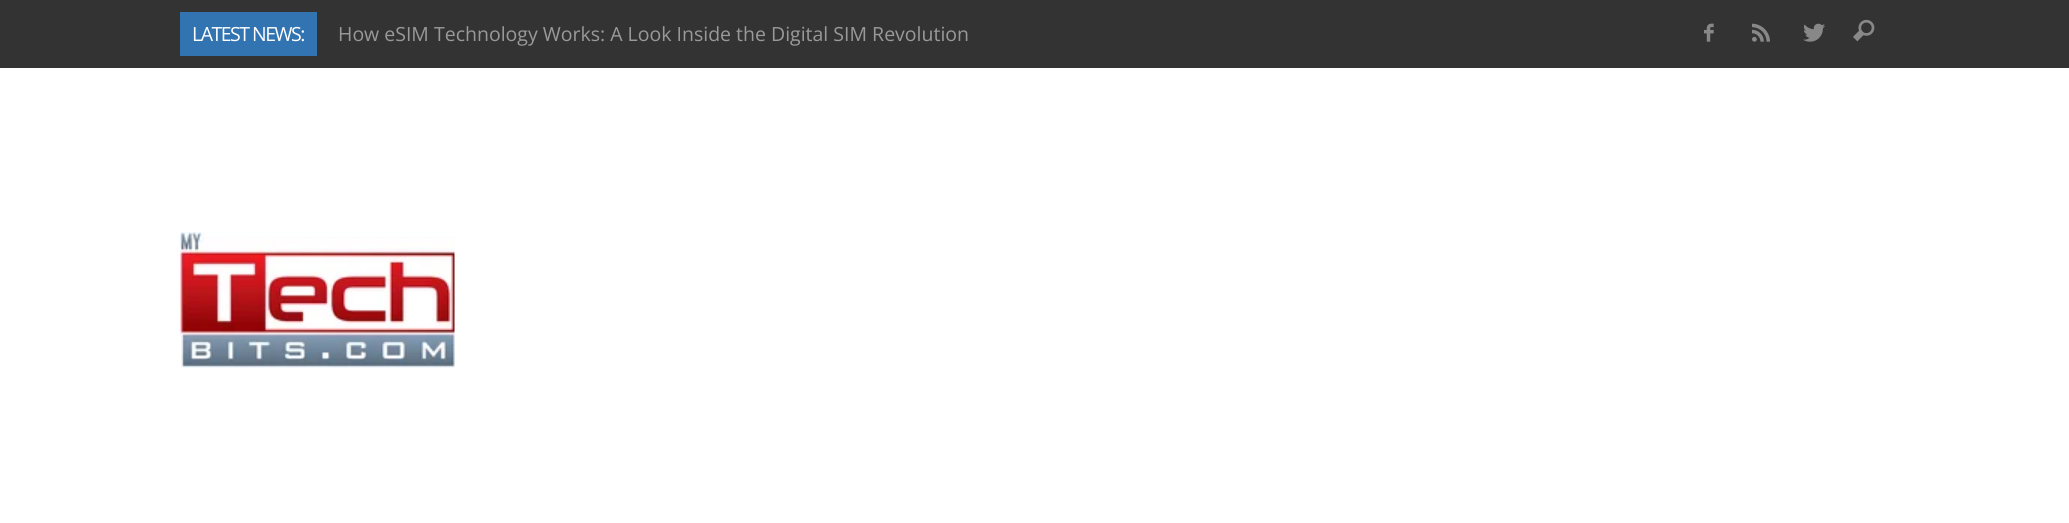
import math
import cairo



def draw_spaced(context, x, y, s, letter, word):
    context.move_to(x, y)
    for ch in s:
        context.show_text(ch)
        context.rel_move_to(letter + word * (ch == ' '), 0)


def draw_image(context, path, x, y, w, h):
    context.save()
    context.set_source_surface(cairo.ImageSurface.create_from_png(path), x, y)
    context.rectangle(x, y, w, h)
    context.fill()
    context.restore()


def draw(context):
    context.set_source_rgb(1, 1, 1)
    context.paint()
    context.set_source_rgb(51 / 255, 51 / 255, 51 / 255)
    context.rectangle(0, 0, 2069, 68)
    context.fill()
    context.set_source_rgb(50 / 255, 116 / 255, 177 / 255)
    context.rectangle(180, 12, 137, 44)
    context.fill()
    draw_image(context, "images/1.png", 1704, 23, 10, 19)
    draw_image(context, "images/2.png", 1752, 23, 18, 19)
    draw_image(context, "images/3.png", 1803, 23, 22, 19)
    draw_image(context, "images/4.png", 1853, 19, 22, 23)
    draw_image(context, "images/5.png", 180, 232, 275, 136)
    context.select_font_face("Open Sans")
    context.set_font_size(19.5)
    context.set_source_rgb(1, 1, 1)
    draw_spaced(context, 192, 41, "LATEST NEWS:", -1.5, 0)
    context.set_source_rgb(153 / 255, 153 / 255, 153 / 255)
    context.move_to(338, 41)
    context.show_text("How eSIM Technology Works: A Look Inside the Digital SIM Revolution")


surface = cairo.ImageSurface(cairo.Format.RGB24, 2069, 523)
context = cairo.Context(surface)
options = cairo.FontOptions()
options.set_hint_metrics(cairo.HintMetrics.OFF)
options.set_hint_style(cairo.HintStyle.NONE)
context.set_font_options(options)
context.set_miter_limit(4)
draw(context)
surface.write_to_png("out.png")
